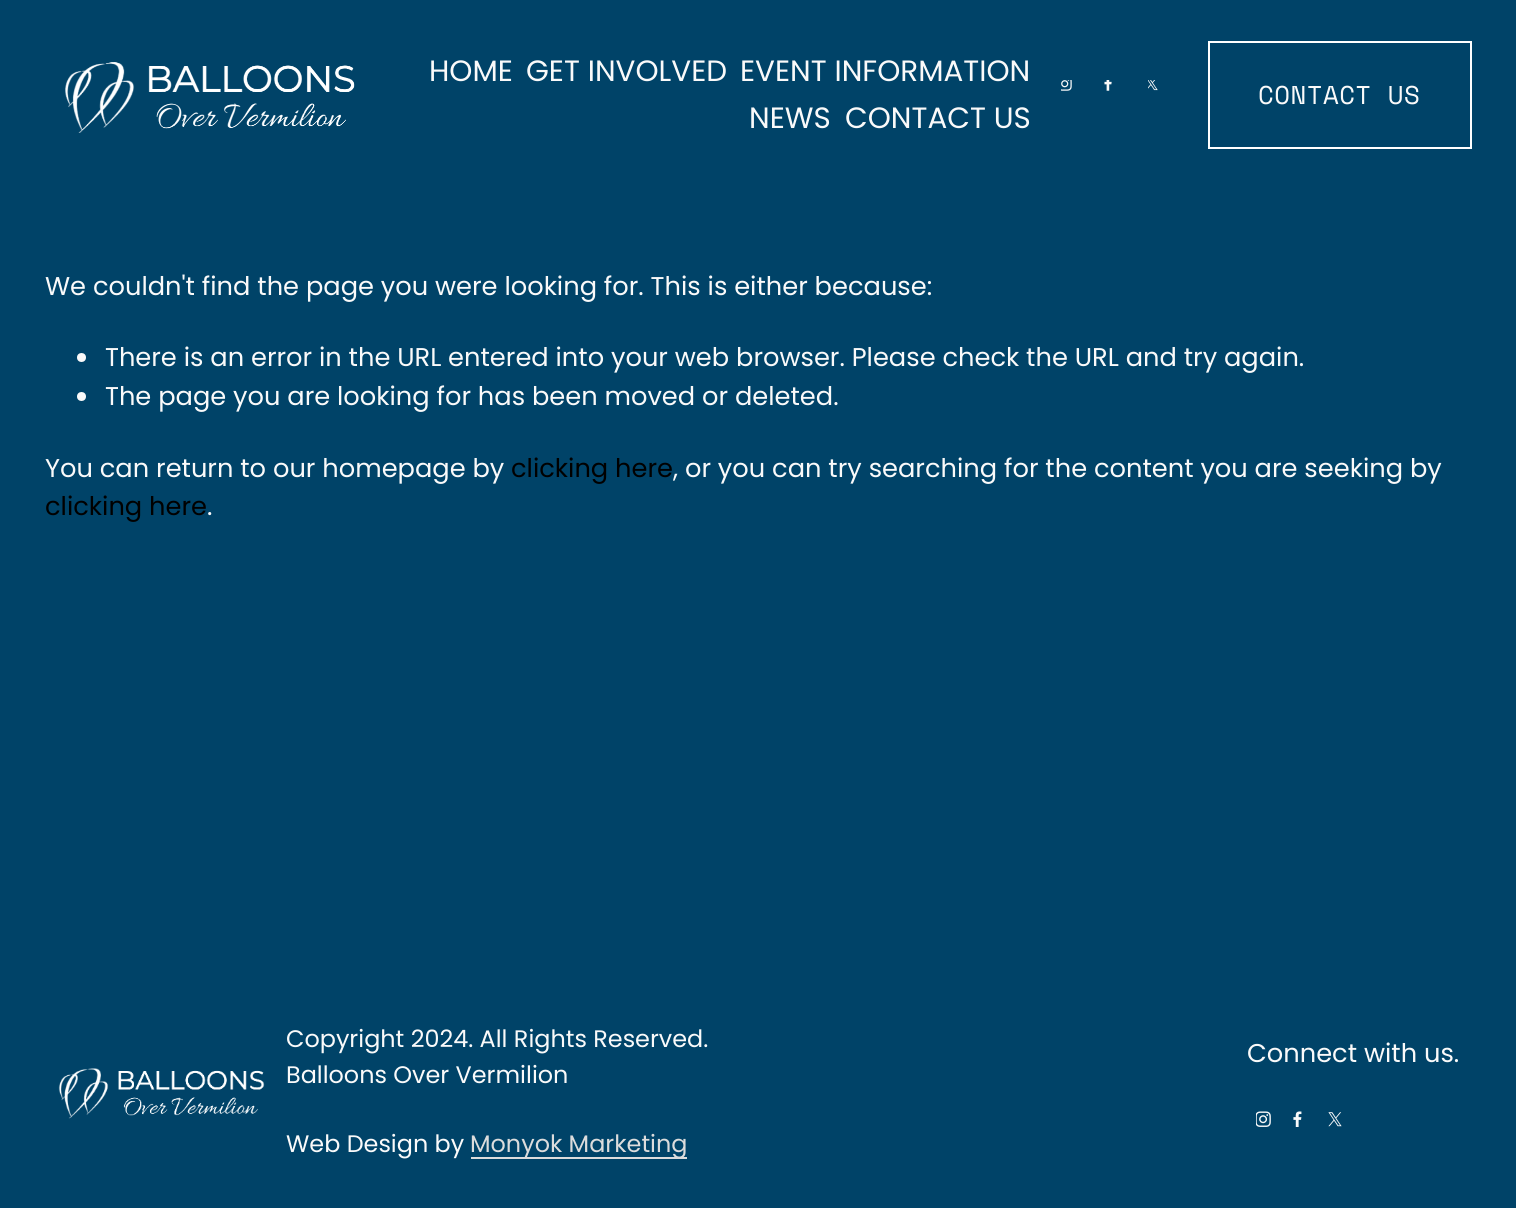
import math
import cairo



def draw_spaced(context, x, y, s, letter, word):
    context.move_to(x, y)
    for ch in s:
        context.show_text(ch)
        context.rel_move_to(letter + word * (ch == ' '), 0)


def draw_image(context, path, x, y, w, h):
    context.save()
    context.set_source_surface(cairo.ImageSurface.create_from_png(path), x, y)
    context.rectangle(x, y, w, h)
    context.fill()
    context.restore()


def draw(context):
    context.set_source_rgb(0, 67 / 255, 104 / 255)
    context.paint()
    draw_image(context, "images/1.png", 65, 62, 290, 71)
    draw_image(context, "images/2.png", 1061, 80, 11, 11)
    draw_image(context, "images/3.png", 1104, 80, 8, 11)
    draw_image(context, "images/4.png", 1148, 80, 10, 11)
    context.rectangle(1209, 42, 262, 106)
    context.set_source_rgb(1, 1, 1)
    context.stroke()
    context.set_source_rgb(250 / 255, 250 / 255, 250 / 255)
    context.arc(81.5, 357.5, 4.5, 0, 2 * math.pi)
    context.fill()
    context.arc(81.5, 396.5, 4.5, 0, 2 * math.pi)
    context.fill()
    context.set_source_rgb(220 / 255, 220 / 255, 220 / 255)
    context.rectangle(471, 1157, 216, 2)
    context.fill()
    draw_image(context, "images/5.png", 58, 1068, 207, 51)
    draw_image(context, "images/6.png", 1256, 1111, 15, 16)
    draw_image(context, "images/7.png", 1293, 1111, 9, 16)
    draw_image(context, "images/8.png", 1328, 1112, 14, 15)
    context.select_font_face("Poppins")
    context.set_font_size(29.4)
    context.set_source_rgb(250 / 255, 250 / 255, 250 / 255)
    context.move_to(429, 81)
    context.show_text("HOME")
    context.move_to(526, 81)
    context.show_text("GET INVOLVED")
    context.move_to(740, 81)
    context.show_text("EVENT INFORMATION")
    context.move_to(749, 128)
    context.show_text("NEWS")
    context.move_to(845, 128)
    context.show_text("CONTACT US")
    context.select_font_face("Space Mono")
    context.set_font_size(25.7)
    draw_spaced(context, 1258, 104, "CONTACT US", 0.5, 0)
    context.select_font_face("Poppins")
    context.move_to(45, 295)
    context.show_text("We couldn't find the page you were looking for. This is either because:")
    context.move_to(105, 366)
    context.show_text("There is an error in the URL entered into your web browser. Please check the URL and try again.")
    context.move_to(105, 405)
    context.show_text("The page you are looking for has been moved or deleted.")
    context.move_to(45, 477)
    context.show_text("You can return to our homepage by")
    context.set_source_rgb(0, 0, 0)
    context.move_to(511, 477)
    context.show_text("clicking here")
    context.set_source_rgb(250 / 255, 250 / 255, 250 / 255)
    context.move_to(673, 477)
    context.show_text(", or you can try searching for the content you are seeking by")
    context.set_source_rgb(0, 0, 0)
    context.move_to(45, 515)
    context.show_text("clicking here")
    context.set_source_rgb(250 / 255, 250 / 255, 250 / 255)
    context.move_to(207, 515)
    context.show_text(".")
    context.set_font_size(23.9)
    context.move_to(286, 1047)
    context.show_text("Copyright 2024. All Rights Reserved.")
    context.move_to(286, 1083)
    context.show_text("Balloons Over Vermilion")
    context.move_to(286, 1152)
    context.show_text("Web Design by")
    context.set_source_rgb(220 / 255, 220 / 255, 220 / 255)
    context.move_to(470, 1152)
    context.show_text("Monyok Marketing")
    context.set_font_size(25.7)
    context.set_source_rgb(250 / 255, 250 / 255, 250 / 255)
    context.move_to(1247, 1062)
    context.show_text("Connect with us.")


surface = cairo.ImageSurface(cairo.Format.RGB24, 1516, 1208)
context = cairo.Context(surface)
options = cairo.FontOptions()
options.set_hint_metrics(cairo.HintMetrics.OFF)
options.set_hint_style(cairo.HintStyle.NONE)
context.set_font_options(options)
context.set_miter_limit(4)
draw(context)
surface.write_to_png("out.png")
